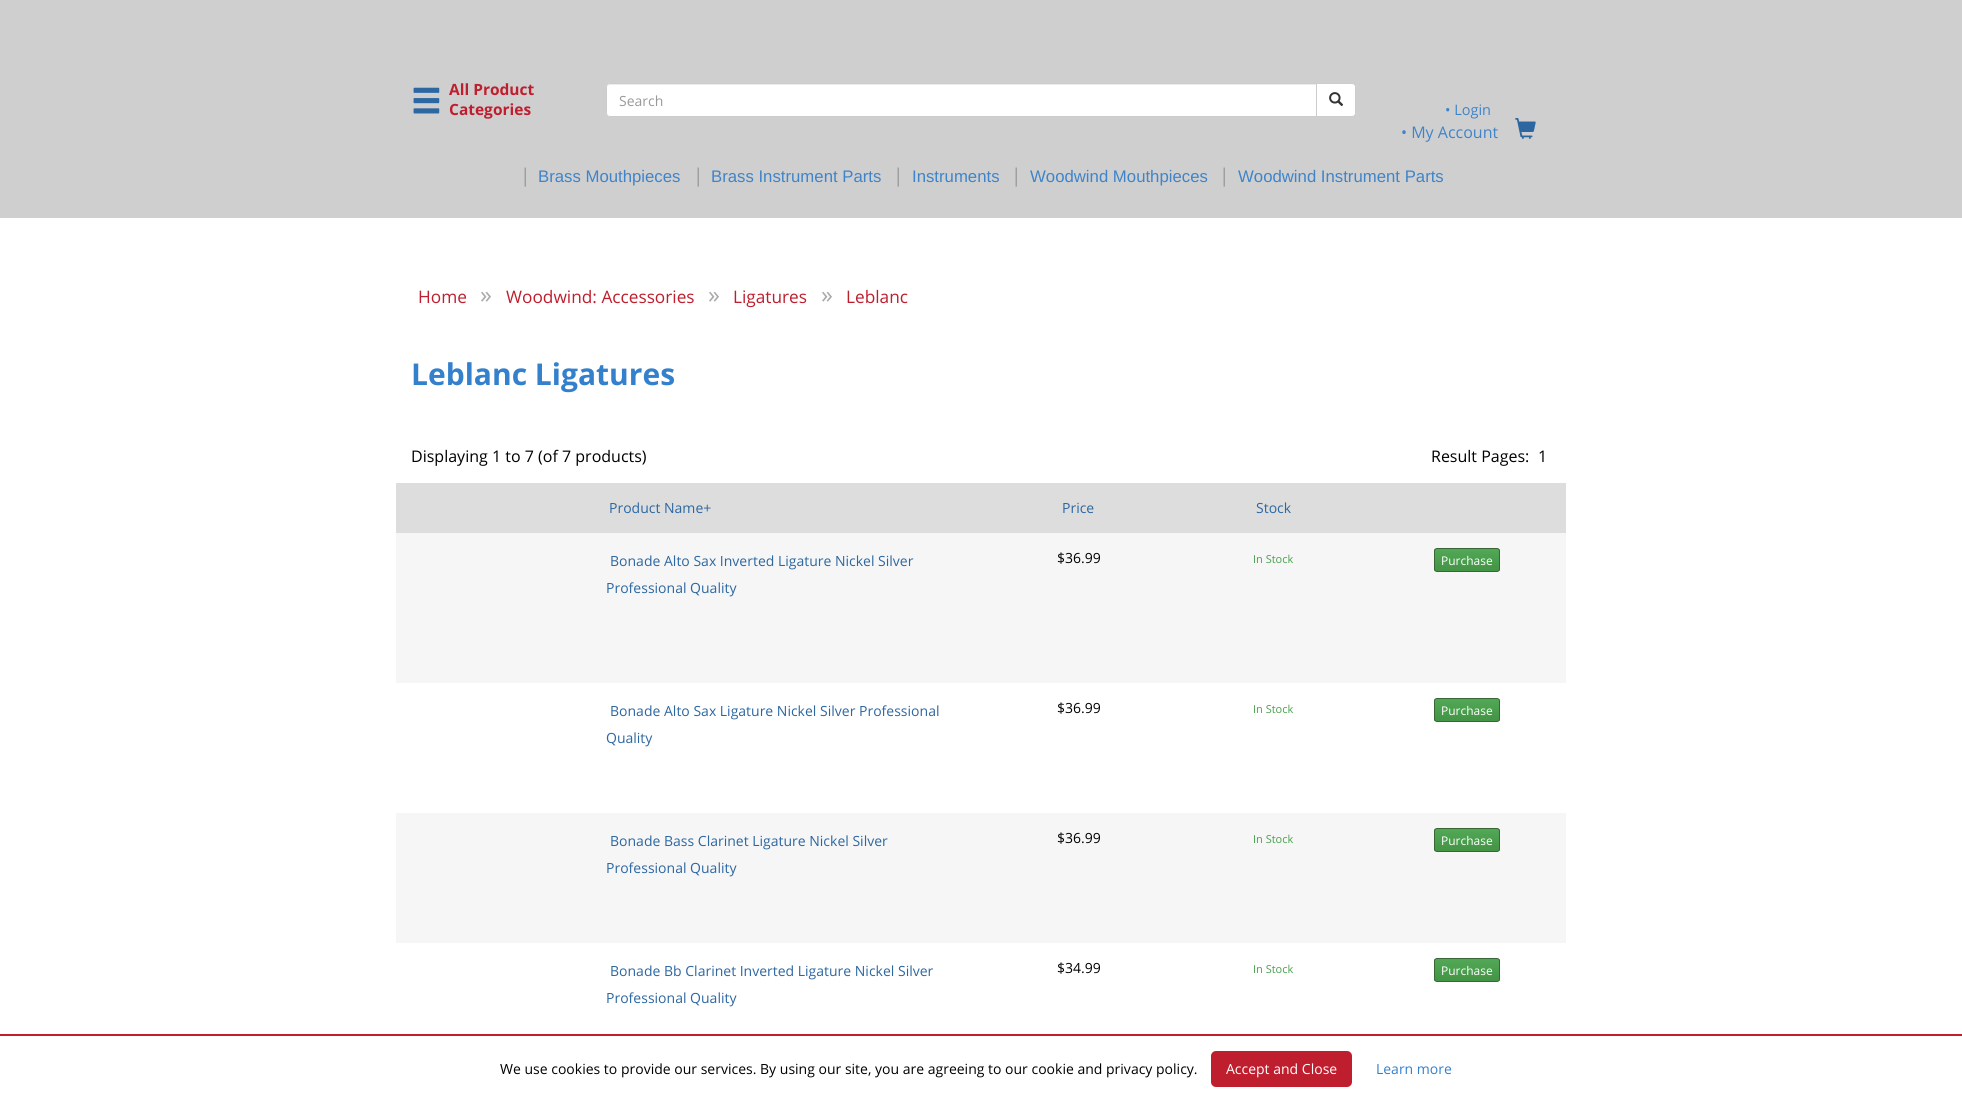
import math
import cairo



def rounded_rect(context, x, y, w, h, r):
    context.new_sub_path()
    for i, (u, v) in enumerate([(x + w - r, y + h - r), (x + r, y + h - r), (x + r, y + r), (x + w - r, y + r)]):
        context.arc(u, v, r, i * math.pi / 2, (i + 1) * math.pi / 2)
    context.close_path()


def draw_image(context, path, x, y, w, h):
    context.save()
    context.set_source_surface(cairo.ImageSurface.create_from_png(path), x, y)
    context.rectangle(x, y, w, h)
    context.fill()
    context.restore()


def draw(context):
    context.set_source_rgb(1, 1, 1)
    context.paint()
    context.set_source_rgb(207 / 255, 207 / 255, 207 / 255)
    context.rectangle(0, 0, 1962, 218)
    context.fill()
    draw_image(context, "images/1.png", 413, 87, 27, 27)
    context.set_source_rgb(1, 1, 1)
    context.new_path()
    context.move_to(610, 83)
    context.line_to(1317, 83)
    context.line_to(1317, 117)
    context.line_to(610, 117)
    context.curve_to(608, 117, 606, 115, 606, 113)
    context.line_to(606, 87)
    context.curve_to(606, 85, 608, 83, 610, 83)
    context.close_path()
    context.fill()
    context.set_source_rgb(236 / 255, 236 / 255, 236 / 255)
    context.new_path()
    context.move_to(610, 85)
    context.line_to(1316, 85)
    context.line_to(1316, 84)
    context.line_to(610, 84)
    context.curve_to(608, 84, 607, 86, 607, 88)
    context.curve_to(607, 86, 608, 85, 610, 85)
    context.close_path()
    context.fill()
    context.new_path()
    context.move_to(610, 83.5)
    context.line_to(1316.5, 83.5)
    context.line_to(1316.5, 116.5)
    context.line_to(610, 116.5)
    context.curve_to(608, 116.5, 606.5, 115, 606.5, 113)
    context.line_to(606.5, 87)
    context.curve_to(606.5, 85, 608, 83.5, 610, 83.5)
    context.close_path()
    context.set_source_rgb(204 / 255, 204 / 255, 204 / 255)
    context.set_line_width(1)
    context.stroke()
    context.set_source_rgb(1, 1, 1)
    context.new_path()
    context.move_to(1316.5, 83.5)
    context.line_to(1352, 83.5)
    context.curve_to(1354, 83.5, 1355.5, 85, 1355.5, 87)
    context.line_to(1355.5, 113)
    context.curve_to(1355.5, 115, 1354, 116.5, 1352, 116.5)
    context.line_to(1316.5, 116.5)
    context.close_path()
    context.fill_preserve()
    context.set_source_rgb(204 / 255, 204 / 255, 204 / 255)
    context.stroke()
    draw_image(context, "images/2.png", 1329, 92, 15, 14)
    draw_image(context, "images/3.png", 1515, 118, 21, 21)
    context.set_source_rgb(221 / 255, 221 / 255, 221 / 255)
    context.rectangle(396, 483, 1170, 50)
    context.fill()
    context.set_source_rgb(246 / 255, 246 / 255, 246 / 255)
    context.rectangle(396, 533, 1170, 150)
    context.fill()
    context.save()
    rounded_rect(context, 1434, 548, 66, 24, 3)
    context.clip()
    gradient = cairo.LinearGradient(1435, 549, 1435, 571)
    gradient.add_color_stop_rgba(0.05, 81 / 255, 167 / 255, 85 / 255, 1)
    gradient.add_color_stop_rgba(1, 67 / 255, 148 / 255, 69 / 255, 1)
    context.set_source(gradient)
    context.rectangle(1434, 549, 66, 22)
    context.fill()
    context.restore()
    rounded_rect(context, 1434.5, 548.5, 65, 23, 2.5)
    context.set_source_rgb(56 / 255, 102 / 255, 54 / 255)
    context.stroke()
    context.save()
    rounded_rect(context, 1434, 698, 66, 24, 3)
    context.clip()
    gradient = cairo.LinearGradient(1435, 699, 1435, 721)
    gradient.add_color_stop_rgba(0.05, 81 / 255, 167 / 255, 85 / 255, 1)
    gradient.add_color_stop_rgba(1, 67 / 255, 148 / 255, 69 / 255, 1)
    context.set_source(gradient)
    context.rectangle(1434, 699, 66, 22)
    context.fill()
    context.restore()
    rounded_rect(context, 1434.5, 698.5, 65, 23, 2.5)
    context.stroke()
    context.set_source_rgb(246 / 255, 246 / 255, 246 / 255)
    context.rectangle(396, 813, 1170, 130)
    context.fill()
    context.save()
    rounded_rect(context, 1434, 828, 66, 24, 3)
    context.clip()
    gradient = cairo.LinearGradient(1435, 829, 1435, 851)
    gradient.add_color_stop_rgba(0.05, 81 / 255, 167 / 255, 85 / 255, 1)
    gradient.add_color_stop_rgba(1, 67 / 255, 148 / 255, 69 / 255, 1)
    context.set_source(gradient)
    context.rectangle(1434, 829, 66, 22)
    context.fill()
    context.restore()
    rounded_rect(context, 1434.5, 828.5, 65, 23, 2.5)
    context.set_source_rgb(56 / 255, 102 / 255, 54 / 255)
    context.stroke()
    context.save()
    rounded_rect(context, 1434, 958, 66, 24, 3)
    context.clip()
    gradient = cairo.LinearGradient(1435, 959, 1435, 981)
    gradient.add_color_stop_rgba(0.05, 81 / 255, 167 / 255, 85 / 255, 1)
    gradient.add_color_stop_rgba(1, 67 / 255, 148 / 255, 69 / 255, 1)
    context.set_source(gradient)
    context.rectangle(1434, 959, 66, 22)
    context.fill()
    context.restore()
    rounded_rect(context, 1434.5, 958.5, 65, 23, 2.5)
    context.stroke()
    context.set_source_rgb(191 / 255, 30 / 255, 46 / 255)
    context.rectangle(0, 1034, 1962, 2)
    context.fill()
    rounded_rect(context, 1211, 1051, 141, 36, 5)
    context.fill()
    context.select_font_face("Open Sans", cairo.FontSlant.NORMAL, cairo.FontWeight.BOLD)
    context.set_font_size(15.5)
    context.move_to(449, 95)
    context.show_text("All Product")
    context.move_to(449, 115)
    context.show_text("Categories")
    context.select_font_face("Open Sans")
    context.set_font_size(14)
    context.set_source_rgb(153 / 255, 153 / 255, 153 / 255)
    context.move_to(619, 106)
    context.show_text("Search")
    context.set_font_size(14.5)
    context.set_source_rgb(63 / 255, 132 / 255, 201 / 255)
    context.move_to(1445, 115)
    context.show_text("• Login")
    context.set_font_size(16)
    context.move_to(1401, 138)
    context.show_text("• My Account")
    context.set_font_size(19)
    context.set_source_rgb(153 / 255, 153 / 255, 153 / 255)
    context.move_to(520, 182)
    context.show_text("|")
    context.select_font_face("Liberation Sans")
    context.set_font_size(16.75)
    context.set_source_rgb(63 / 255, 132 / 255, 201 / 255)
    context.move_to(538, 182)
    context.show_text("Brass Mouthpieces")
    context.select_font_face("Open Sans")
    context.set_font_size(19)
    context.set_source_rgb(153 / 255, 153 / 255, 153 / 255)
    context.move_to(693, 182)
    context.show_text("|")
    context.select_font_face("Liberation Sans")
    context.set_font_size(16.75)
    context.set_source_rgb(63 / 255, 132 / 255, 201 / 255)
    context.move_to(711, 182)
    context.show_text("Brass Instrument Parts")
    context.select_font_face("Open Sans")
    context.set_font_size(19)
    context.set_source_rgb(153 / 255, 153 / 255, 153 / 255)
    context.move_to(893, 182)
    context.show_text("|")
    context.select_font_face("Liberation Sans")
    context.set_font_size(16.75)
    context.set_source_rgb(63 / 255, 132 / 255, 201 / 255)
    context.move_to(912, 182)
    context.show_text("Instruments")
    context.select_font_face("Open Sans")
    context.set_font_size(19)
    context.set_source_rgb(153 / 255, 153 / 255, 153 / 255)
    context.move_to(1011, 182)
    context.show_text("|")
    context.select_font_face("Liberation Sans")
    context.set_font_size(16.75)
    context.set_source_rgb(63 / 255, 132 / 255, 201 / 255)
    context.move_to(1030, 182)
    context.show_text("Woodwind Mouthpieces")
    context.select_font_face("Open Sans")
    context.set_font_size(19)
    context.set_source_rgb(153 / 255, 153 / 255, 153 / 255)
    context.move_to(1219, 182)
    context.show_text("|")
    context.select_font_face("Liberation Sans")
    context.set_font_size(16.75)
    context.set_source_rgb(63 / 255, 132 / 255, 201 / 255)
    context.move_to(1238, 182)
    context.show_text("Woodwind Instrument Parts")
    context.select_font_face("Open Sans")
    context.set_font_size(17.25)
    context.set_source_rgb(191 / 255, 30 / 255, 46 / 255)
    context.move_to(418, 303)
    context.show_text("Home")
    context.set_font_size(24)
    context.set_source_rgb(170 / 255, 170 / 255, 170 / 255)
    context.move_to(480, 303)
    context.show_text("»")
    context.set_font_size(17.25)
    context.set_source_rgb(191 / 255, 30 / 255, 46 / 255)
    context.move_to(506, 303)
    context.show_text("Woodwind: Accessories")
    context.set_font_size(24)
    context.set_source_rgb(170 / 255, 170 / 255, 170 / 255)
    context.move_to(708, 303)
    context.show_text("»")
    context.set_font_size(17.25)
    context.set_source_rgb(191 / 255, 30 / 255, 46 / 255)
    context.move_to(733, 303)
    context.show_text("Ligatures")
    context.set_font_size(24)
    context.set_source_rgb(170 / 255, 170 / 255, 170 / 255)
    context.move_to(821, 303)
    context.show_text("»")
    context.set_font_size(17.25)
    context.set_source_rgb(191 / 255, 30 / 255, 46 / 255)
    context.move_to(846, 303)
    context.show_text("Leblanc")
    context.select_font_face("Open Sans", cairo.FontSlant.NORMAL, cairo.FontWeight.BOLD)
    context.set_font_size(30)
    context.set_source_rgb(51 / 255, 128 / 255, 204 / 255)
    context.move_to(411, 385)
    context.show_text("Leblanc Ligatures")
    context.select_font_face("Open Sans")
    context.set_font_size(16)
    context.set_source_rgb(0, 0, 0)
    context.move_to(411, 462)
    context.show_text("Displaying 1 to 7 (of 7 products)")
    context.move_to(1431, 462)
    context.show_text("Result Pages:")
    context.move_to(1538, 462)
    context.show_text("1")
    context.set_font_size(14)
    context.set_source_rgb(44 / 255, 103 / 255, 161 / 255)
    context.move_to(609, 513)
    context.show_text("Product Name+")
    context.move_to(1062, 513)
    context.show_text("Price")
    context.move_to(1256, 513)
    context.show_text("Stock")
    context.move_to(610, 566)
    context.show_text("Bonade Alto Sax Inverted Ligature Nickel Silver")
    context.move_to(606, 593)
    context.show_text("Professional Quality")
    context.set_source_rgb(0, 0, 0)
    context.move_to(1057, 563)
    context.show_text("$36.99")
    context.set_font_size(11)
    context.set_source_rgb(72 / 255, 159 / 255, 76 / 255)
    context.move_to(1253, 563)
    context.show_text("In Stock")
    context.set_font_size(12)
    context.set_source_rgb(1, 1, 1)
    context.move_to(1441, 565)
    context.show_text("Purchase")
    context.set_font_size(14)
    context.set_source_rgb(44 / 255, 103 / 255, 161 / 255)
    context.move_to(610, 716)
    context.show_text("Bonade Alto Sax Ligature Nickel Silver Professional")
    context.move_to(606, 743)
    context.show_text("Quality")
    context.set_source_rgb(0, 0, 0)
    context.move_to(1057, 713)
    context.show_text("$36.99")
    context.set_font_size(11)
    context.set_source_rgb(72 / 255, 159 / 255, 76 / 255)
    context.move_to(1253, 713)
    context.show_text("In Stock")
    context.set_font_size(12)
    context.set_source_rgb(1, 1, 1)
    context.move_to(1441, 715)
    context.show_text("Purchase")
    context.set_font_size(14)
    context.set_source_rgb(44 / 255, 103 / 255, 161 / 255)
    context.move_to(610, 846)
    context.show_text("Bonade Bass Clarinet Ligature Nickel Silver")
    context.move_to(606, 873)
    context.show_text("Professional Quality")
    context.set_source_rgb(0, 0, 0)
    context.move_to(1057, 843)
    context.show_text("$36.99")
    context.set_font_size(11)
    context.set_source_rgb(72 / 255, 159 / 255, 76 / 255)
    context.move_to(1253, 843)
    context.show_text("In Stock")
    context.set_font_size(12)
    context.set_source_rgb(1, 1, 1)
    context.move_to(1441, 845)
    context.show_text("Purchase")
    context.set_font_size(14)
    context.set_source_rgb(44 / 255, 103 / 255, 161 / 255)
    context.move_to(610, 976)
    context.show_text("Bonade Bb Clarinet Inverted Ligature Nickel Silver")
    context.move_to(606, 1003)
    context.show_text("Professional Quality")
    context.set_source_rgb(0, 0, 0)
    context.move_to(1057, 973)
    context.show_text("$34.99")
    context.set_font_size(11)
    context.set_source_rgb(72 / 255, 159 / 255, 76 / 255)
    context.move_to(1253, 973)
    context.show_text("In Stock")
    context.set_font_size(12)
    context.set_source_rgb(1, 1, 1)
    context.move_to(1441, 975)
    context.show_text("Purchase")
    context.set_font_size(14)
    context.set_source_rgb(0, 0, 0)
    context.move_to(500, 1074)
    context.show_text("We use cookies to provide our services. By using our site, you are agreeing to our cookie and privacy policy.")
    context.set_source_rgb(1, 1, 1)
    context.move_to(1226, 1074)
    context.show_text("Accept and Close")
    context.set_source_rgb(51 / 255, 128 / 255, 204 / 255)
    context.move_to(1376, 1074)
    context.show_text("Learn more")


surface = cairo.ImageSurface(cairo.Format.RGB24, 1962, 1102)
context = cairo.Context(surface)
options = cairo.FontOptions()
options.set_hint_metrics(cairo.HintMetrics.OFF)
options.set_hint_style(cairo.HintStyle.NONE)
context.set_font_options(options)
context.set_miter_limit(4)
draw(context)
surface.write_to_png("out.png")
